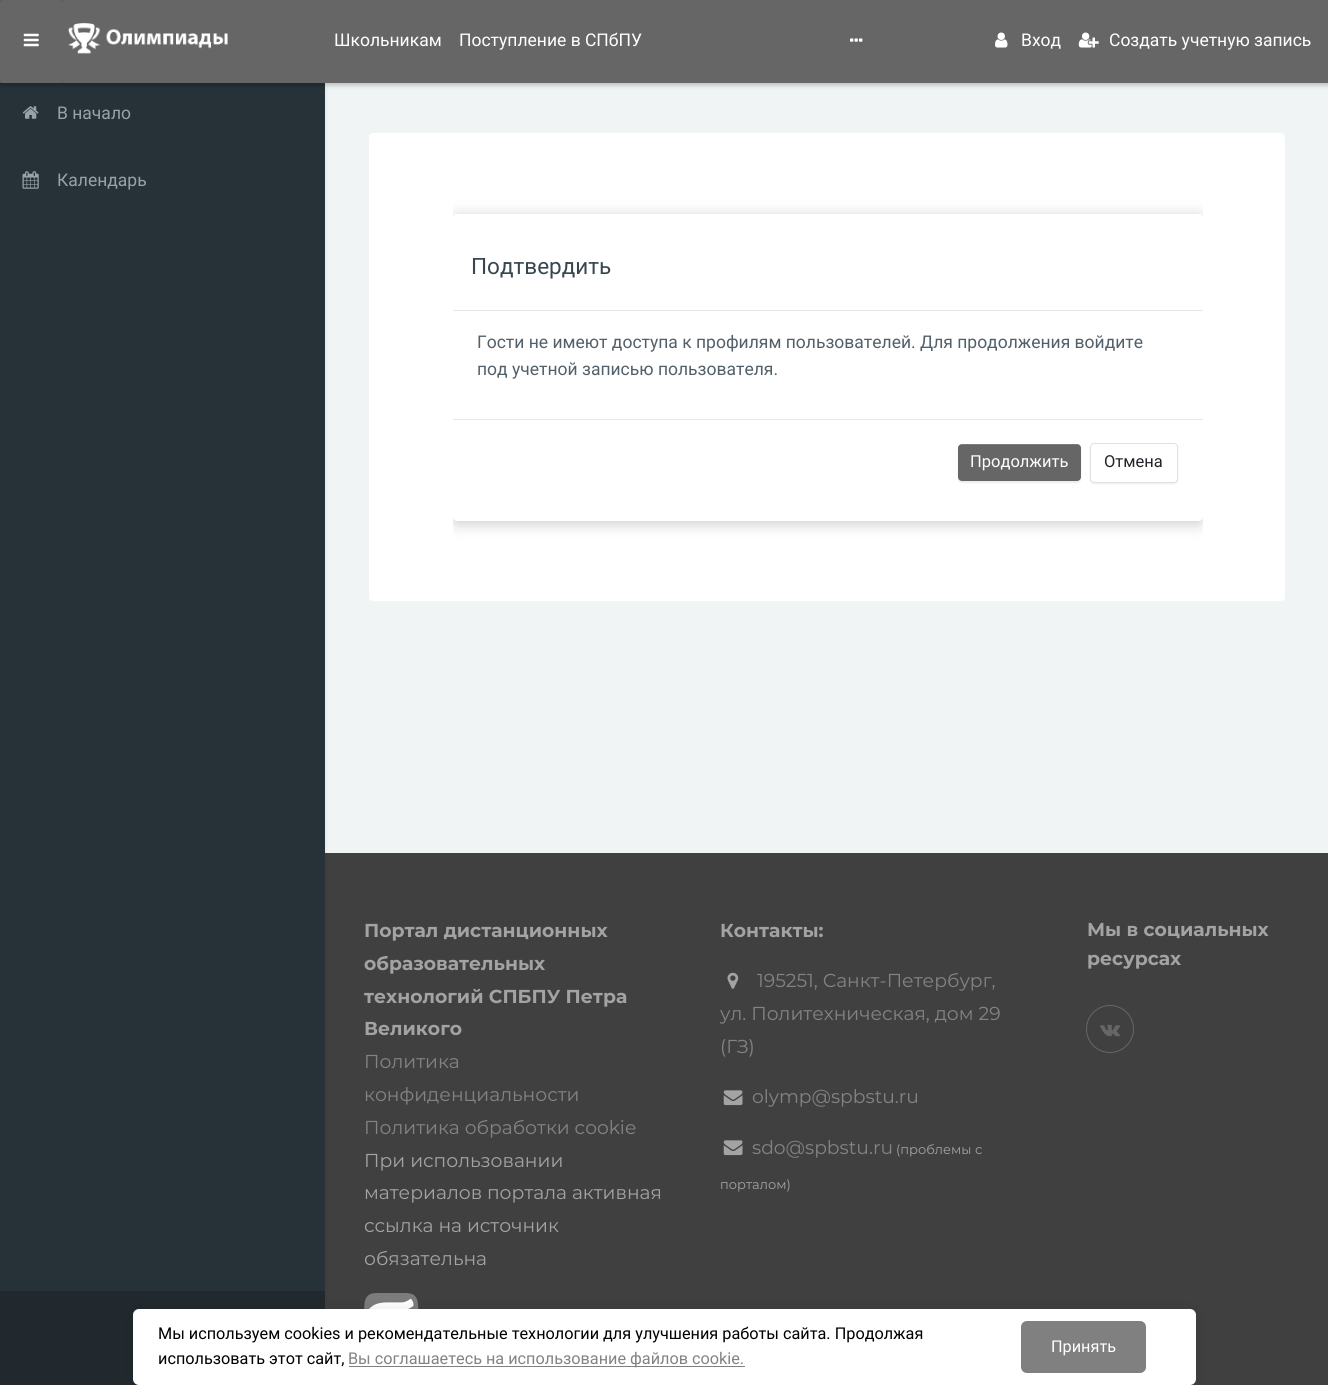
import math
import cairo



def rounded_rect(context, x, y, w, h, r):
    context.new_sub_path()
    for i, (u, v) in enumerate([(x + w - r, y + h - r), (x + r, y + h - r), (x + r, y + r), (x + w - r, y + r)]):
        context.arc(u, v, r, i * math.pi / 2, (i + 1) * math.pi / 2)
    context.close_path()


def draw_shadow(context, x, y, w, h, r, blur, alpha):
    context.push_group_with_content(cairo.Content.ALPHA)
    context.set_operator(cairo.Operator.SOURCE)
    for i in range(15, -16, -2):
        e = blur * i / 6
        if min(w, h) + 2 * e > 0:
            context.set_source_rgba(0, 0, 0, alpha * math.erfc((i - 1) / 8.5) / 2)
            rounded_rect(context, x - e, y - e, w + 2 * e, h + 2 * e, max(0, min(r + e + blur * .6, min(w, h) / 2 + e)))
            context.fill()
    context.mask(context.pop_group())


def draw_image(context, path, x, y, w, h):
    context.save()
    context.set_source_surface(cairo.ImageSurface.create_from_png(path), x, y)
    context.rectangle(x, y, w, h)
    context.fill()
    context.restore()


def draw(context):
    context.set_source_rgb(241 / 255, 244 / 255, 245 / 255)
    context.paint()
    context.set_source_rgb(64 / 255, 64 / 255, 64 / 255)
    context.rectangle(325, 853, 1003, 532)
    context.fill()
    context.set_source_rgb(0, 0, 0)
    draw_shadow(context, 0, 85, 325, 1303, 0, 2.5, 0.08)
    context.set_source_rgb(38 / 255, 50 / 255, 56 / 255)
    context.rectangle(0, 83, 325, 1208)
    context.fill()
    context.set_source_rgb(0, 0, 0)
    draw_shadow(context, -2, -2, 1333, 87, 0, 2.5, 0.25)
    context.set_source_rgb(102 / 255, 102 / 255, 103 / 255)
    context.rectangle(63, 0, 1265, 83)
    context.fill()
    context.set_source_rgb(92 / 255, 92 / 255, 93 / 255)
    context.rectangle(0, 0, 63, 83)
    context.fill()
    context.set_source_rgb(102 / 255, 102 / 255, 103 / 255)
    rounded_rect(context, 0, 0, 63, 83, 4)
    context.fill()
    draw_image(context, "images/1.png", 23, 33, 16, 14)
    draw_image(context, "images/2.png", 68, 23, 160, 31)
    draw_image(context, "images/3.png", 850, 38, 13, 4)
    draw_image(context, "images/4.png", 995, 32, 13, 16)
    draw_image(context, "images/5.png", 1078, 32, 21, 16)
    draw_image(context, "images/6.png", 22, 106, 17, 13)
    draw_image(context, "images/7.png", 22, 171, 17, 18)
    context.set_source_rgb(33 / 255, 41 / 255, 46 / 255)
    context.rectangle(0, 1291, 325, 94)
    context.fill()
    context.set_source_rgb(1, 1, 1)
    rounded_rect(context, 369, 133, 916, 468, 4)
    context.fill()
    context.save()
    context.rectangle(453, 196, 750, 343)
    context.clip()
    context.set_source_rgb(0, 0, 0)
    draw_shadow(context, 453, 216, 750, 308, 4, 7.5, 0.2)
    context.restore()
    rounded_rect(context, 453, 214, 750, 307, 4)
    context.fill()
    context.set_source_rgb(228 / 255, 234 / 255, 236 / 255)
    context.rectangle(453, 310, 750, 1)
    context.fill()
    context.rectangle(453, 419, 750, 1)
    context.fill()
    context.set_source_rgb(0, 0, 0)
    draw_shadow(context, 958, 445, 123, 38, 4, 0.5, 0.07)
    context.set_source_rgb(102 / 255, 102 / 255, 103 / 255)
    rounded_rect(context, 958, 444, 123, 37, 4)
    context.fill()
    context.set_source_rgba(1, 1, 1, 0.15)
    context.new_path()
    context.move_to(961, 445)
    context.line_to(1077, 445)
    context.curve_to(1080, 445, 1081, 447, 1081, 449)
    context.curve_to(1081, 439, 1061, 444, 1058, 444)
    context.line_to(981, 444)
    context.curve_to(978, 444, 958, 439, 958, 449)
    context.curve_to(958, 447, 959, 445, 961, 445)
    context.close_path()
    context.fill()
    context.set_source_rgb(0, 0, 0)
    draw_shadow(context, 1090, 444, 88, 40, 4, 0.5, 0.07)
    context.set_source_rgb(1, 1, 1)
    rounded_rect(context, 1090.5, 443.5, 87, 39, 3.5)
    context.fill_preserve()
    context.set_source_rgb(224 / 255, 224 / 255, 224 / 255)
    context.set_line_width(1)
    context.stroke()
    draw_image(context, "images/8.png", 364, 1293, 55, 16)
    draw_image(context, "images/9.png", 727, 972, 12, 17)
    draw_image(context, "images/10.png", 723, 1090, 20, 16)
    draw_image(context, "images/10.png", 723, 1140, 20, 16)
    context.arc(1110, 1029, 23.5, 0, 2 * math.pi)
    context.set_source_rgb(102 / 255, 102 / 255, 102 / 255)
    context.stroke()
    draw_image(context, "images/11.png", 1100, 1024, 20, 13)
    context.set_source_rgb(0, 0, 0)
    draw_shadow(context, 133, 1309, 1063, 76, 6, 6, 0.1)
    context.set_source_rgb(1, 1, 1)
    rounded_rect(context, 133, 1309, 1063, 76, 6)
    context.fill()
    context.set_source_rgb(128 / 255, 128 / 255, 128 / 255)
    context.rectangle(349, 1366, 396, 1)
    context.fill()
    rounded_rect(context, 1021, 1321, 125, 52, 6)
    context.fill()
    context.select_font_face("Roboto")
    context.set_font_size(17.5)
    context.set_source_rgb(1, 1, 1)
    context.move_to(334, 46)
    context.show_text("Школьникам")
    context.move_to(459, 46)
    context.show_text("Поступление в СПбПУ")
    context.move_to(1021, 46)
    context.show_text("Вход")
    context.move_to(1109, 46)
    context.show_text("Создать учетную запись")
    context.set_source_rgb(151 / 255, 163 / 255, 170 / 255)
    context.move_to(57, 119)
    context.show_text("В начало")
    context.move_to(57, 186)
    context.show_text("Календарь")
    context.set_font_size(22.5)
    context.set_source_rgb(55 / 255, 71 / 255, 79 / 255)
    context.move_to(471, 274)
    context.show_text("Подтвердить")
    context.set_font_size(17.5)
    context.set_source_rgb(82 / 255, 96 / 255, 105 / 255)
    context.move_to(477, 348)
    context.show_text("Гости не имеют доступа к профилям пользователей. Для продолжения войдите")
    context.move_to(477, 375)
    context.show_text("под учетной записью пользователя.")
    context.set_font_size(16.5)
    context.set_source_rgb(1, 1, 1)
    context.move_to(970, 467)
    context.show_text("Продолжить")
    context.set_source_rgb(33 / 255, 37 / 255, 41 / 255)
    context.move_to(1104, 467)
    context.show_text("Отмена")
    context.select_font_face("Montserrat", cairo.FontSlant.NORMAL, cairo.FontWeight.BOLD)
    context.set_font_size(18.75)
    context.set_source_rgb(163 / 255, 163 / 255, 163 / 255)
    context.move_to(364, 937)
    context.show_text("Портал дистанционных")
    context.move_to(364, 970)
    context.show_text("образовательных")
    context.move_to(364, 1003)
    context.show_text("технологий СПБПУ Петра")
    context.move_to(364, 1035)
    context.show_text("Великого")
    context.select_font_face("Montserrat")
    context.set_source_rgb(131 / 255, 131 / 255, 131 / 255)
    context.move_to(364, 1068)
    context.show_text("Политика")
    context.move_to(364, 1101)
    context.show_text("конфиденциальности")
    context.move_to(364, 1134)
    context.show_text("Политика обработки cookie")
    context.set_source_rgb(163 / 255, 163 / 255, 163 / 255)
    context.move_to(364, 1167)
    context.show_text("При использовании")
    context.move_to(364, 1199)
    context.show_text("материалов портала активная")
    context.move_to(364, 1232)
    context.show_text("ссылка на источник")
    context.move_to(364, 1265)
    context.show_text("обязательна")
    context.select_font_face("Montserrat", cairo.FontSlant.NORMAL, cairo.FontWeight.BOLD)
    context.move_to(720, 937)
    context.show_text("Контакты:")
    context.select_font_face("Montserrat")
    context.set_source_rgb(131 / 255, 131 / 255, 131 / 255)
    context.move_to(757, 987)
    context.show_text("195251, Санкт-Петербург,")
    context.move_to(720, 1020)
    context.show_text("ул. Политехническая, дом 29")
    context.move_to(720, 1053)
    context.show_text("(ГЗ)")
    context.move_to(752, 1103)
    context.show_text("olymp@spbstu.ru")
    context.move_to(752, 1154)
    context.show_text("sdo@spbstu.ru")
    context.set_font_size(13)
    context.set_source_rgb(163 / 255, 163 / 255, 163 / 255)
    context.move_to(896, 1154)
    context.show_text("(проблемы с")
    context.move_to(720, 1189)
    context.show_text("порталом)")
    context.select_font_face("Montserrat", cairo.FontSlant.NORMAL, cairo.FontWeight.BOLD)
    context.set_font_size(18.75)
    context.move_to(1087, 936)
    context.show_text("Мы в социальных")
    context.move_to(1087, 965)
    context.show_text("ресурсах")
    context.select_font_face("Roboto")
    context.set_font_size(16.25)
    context.set_source_rgb(0, 0, 0)
    context.move_to(158, 1339)
    context.show_text("Мы используем cookies и рекомендательные технологии для улучшения работы сайта. Продолжая")
    context.move_to(158, 1364)
    context.show_text("использовать этот сайт,")
    context.set_source_rgb(131 / 255, 131 / 255, 131 / 255)
    context.move_to(348, 1364)
    context.show_text("Вы соглашаетесь на использование файлов cookie.")
    context.set_source_rgb(1, 1, 1)
    context.move_to(1051, 1352)
    context.show_text("Принять")


surface = cairo.ImageSurface(cairo.Format.RGB24, 1328, 1385)
context = cairo.Context(surface)
options = cairo.FontOptions()
options.set_hint_metrics(cairo.HintMetrics.OFF)
options.set_hint_style(cairo.HintStyle.NONE)
context.set_font_options(options)
context.set_miter_limit(4)
draw(context)
surface.write_to_png("out.png")
